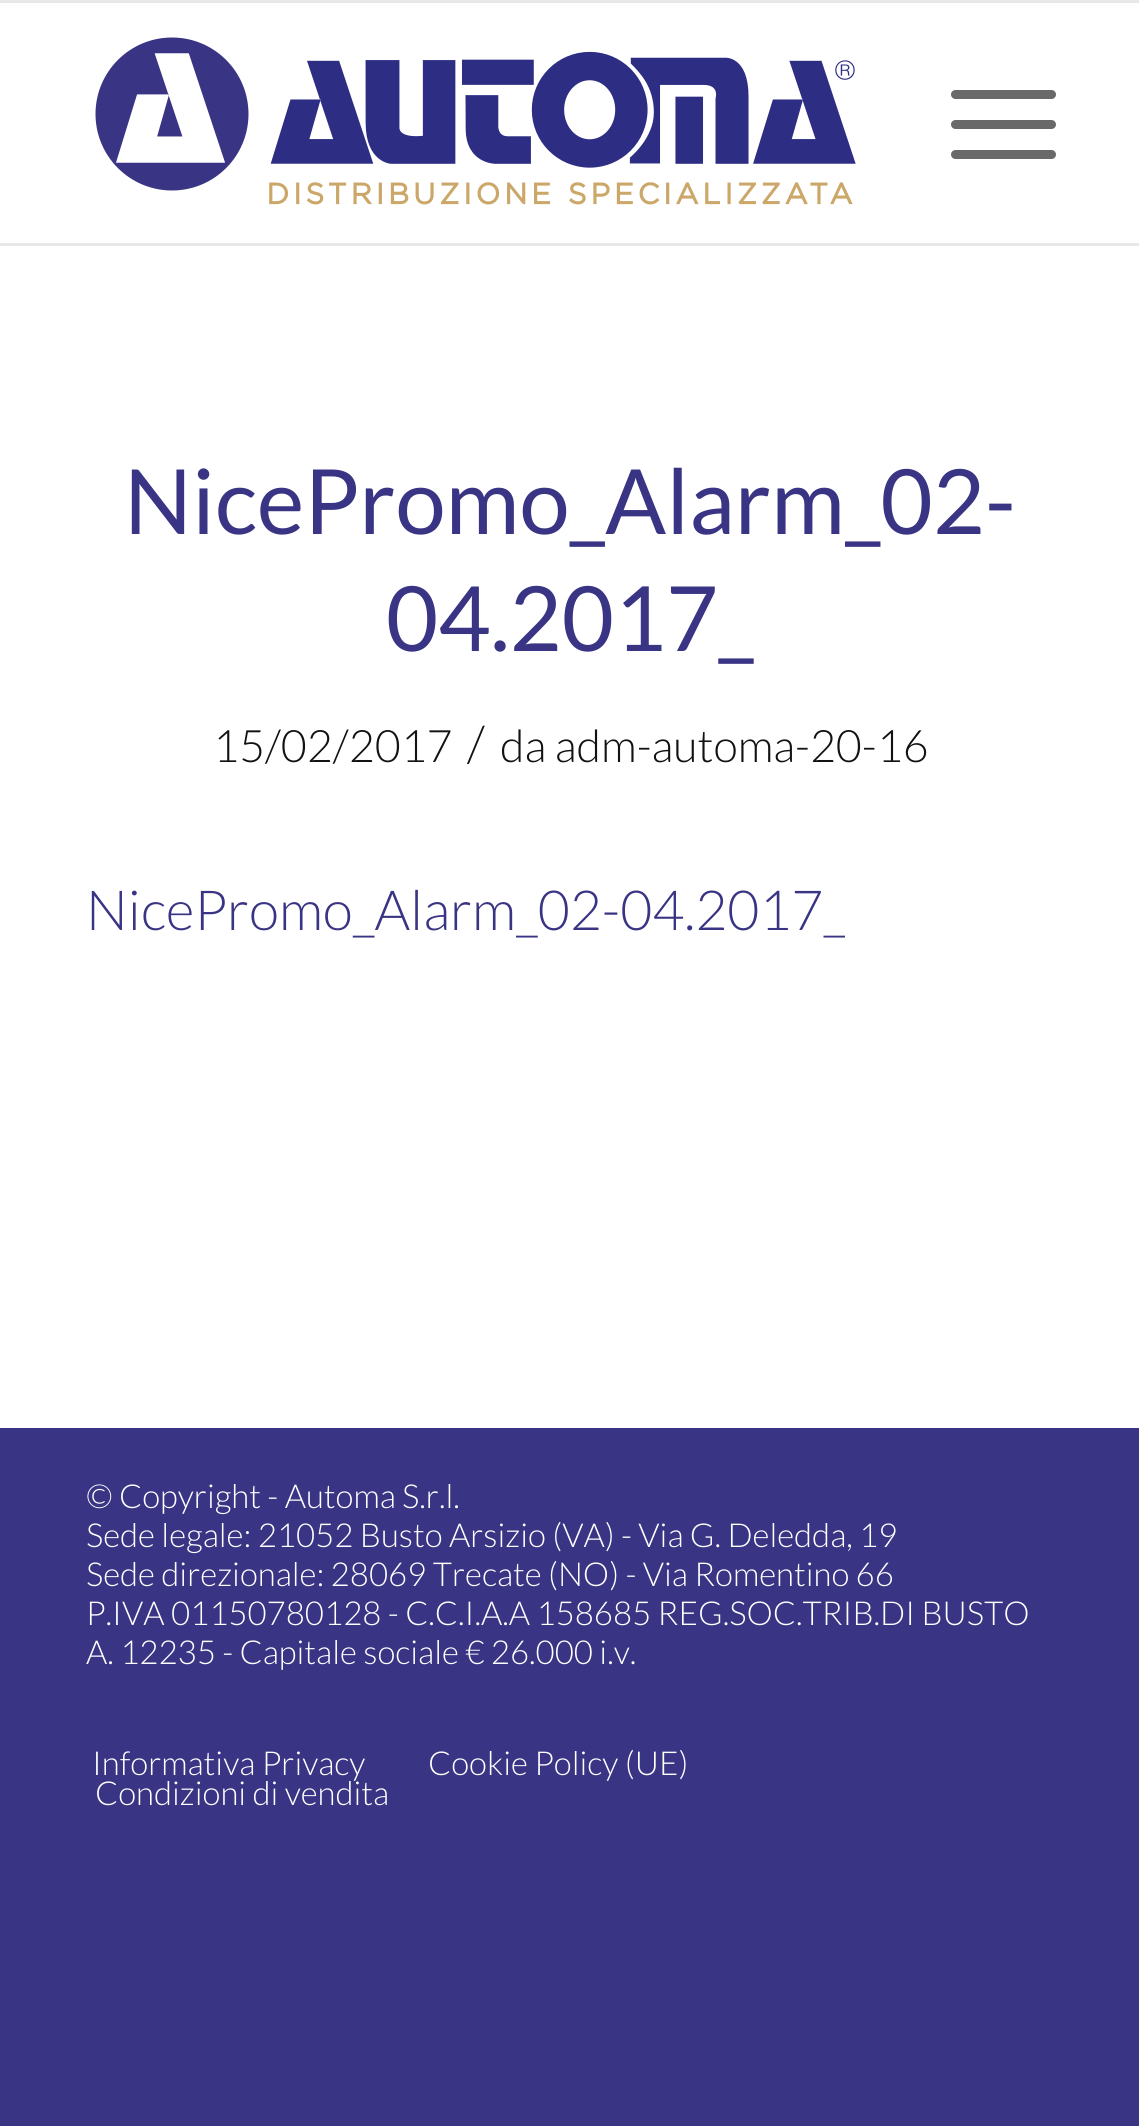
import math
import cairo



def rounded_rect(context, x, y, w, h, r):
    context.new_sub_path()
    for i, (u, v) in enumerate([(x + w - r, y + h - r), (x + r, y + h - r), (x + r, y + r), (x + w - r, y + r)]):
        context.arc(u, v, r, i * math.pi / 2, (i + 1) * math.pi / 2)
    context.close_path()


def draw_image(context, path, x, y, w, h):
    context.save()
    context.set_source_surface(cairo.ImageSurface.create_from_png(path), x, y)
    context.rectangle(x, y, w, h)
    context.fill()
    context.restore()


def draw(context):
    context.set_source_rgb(58 / 255, 52 / 255, 132 / 255)
    context.paint()
    context.set_source_rgb(1, 1, 1)
    context.rectangle(0, 3, 1139, 1425)
    context.fill()
    context.set_source_rgb(232 / 255, 232 / 255, 232 / 255)
    context.rectangle(0, 0, 1139, 3)
    context.fill()
    context.rectangle(0, 243, 1139, 3)
    context.fill()
    draw_image(context, "images/1.png", 95, 37, 761, 168)
    context.set_source_rgb(105 / 255, 105 / 255, 105 / 255)
    rounded_rect(context, 951, 120, 105, 9, 4.5)
    context.fill()
    rounded_rect(context, 951, 90, 105, 9, 4.5)
    context.fill()
    rounded_rect(context, 951, 150, 105, 9, 4.5)
    context.fill()
    context.select_font_face("Lato")
    context.set_font_size(90)
    context.set_source_rgb(58 / 255, 52 / 255, 132 / 255)
    context.move_to(124, 534)
    context.show_text("NicePromo_Alarm_02-")
    context.move_to(386, 651)
    context.show_text("04.2017_")
    context.select_font_face("Lato Light")
    context.set_font_size(44.75)
    context.set_source_rgb(18 / 255, 18 / 255, 18 / 255)
    context.move_to(213, 762)
    context.show_text("15/02/2017")
    context.set_font_size(50)
    context.move_to(467, 762)
    context.show_text("/")
    context.set_font_size(44.75)
    context.move_to(500, 762)
    context.show_text("da adm-automa-20-16")
    context.set_font_size(55.25)
    context.set_source_rgb(58 / 255, 52 / 255, 132 / 255)
    context.move_to(86, 930)
    context.show_text("NicePromo_Alarm_02-04.2017_")
    context.set_font_size(33)
    context.set_source_rgb(1, 1, 1)
    context.move_to(86, 1508)
    context.show_text("© Copyright - Automa S.r.l.")
    context.move_to(86, 1547)
    context.show_text("Sede legale: 21052 Busto Arsizio (VA) - Via G. Deledda, 19")
    context.move_to(86, 1586)
    context.show_text("Sede direzionale: 28069 Trecate (NO) - Via Romentino 66")
    context.move_to(86, 1625)
    context.show_text("P.IVA 01150780128 - C.C.I.A.A 158685 REG.SOC.TRIB.DI BUSTO")
    context.move_to(86, 1664)
    context.show_text("A. 12235 - Capitale sociale € 26.000 i.v.")
    context.move_to(92, 1775)
    context.show_text("Informativa Privacy")
    context.move_to(428, 1775)
    context.show_text("Cookie Policy (UE)")
    context.move_to(95, 1805)
    context.show_text("Condizioni di vendita")


surface = cairo.ImageSurface(cairo.Format.RGB24, 1139, 2126)
context = cairo.Context(surface)
options = cairo.FontOptions()
options.set_hint_metrics(cairo.HintMetrics.OFF)
options.set_hint_style(cairo.HintStyle.NONE)
context.set_font_options(options)
context.set_miter_limit(4)
draw(context)
surface.write_to_png("out.png")
